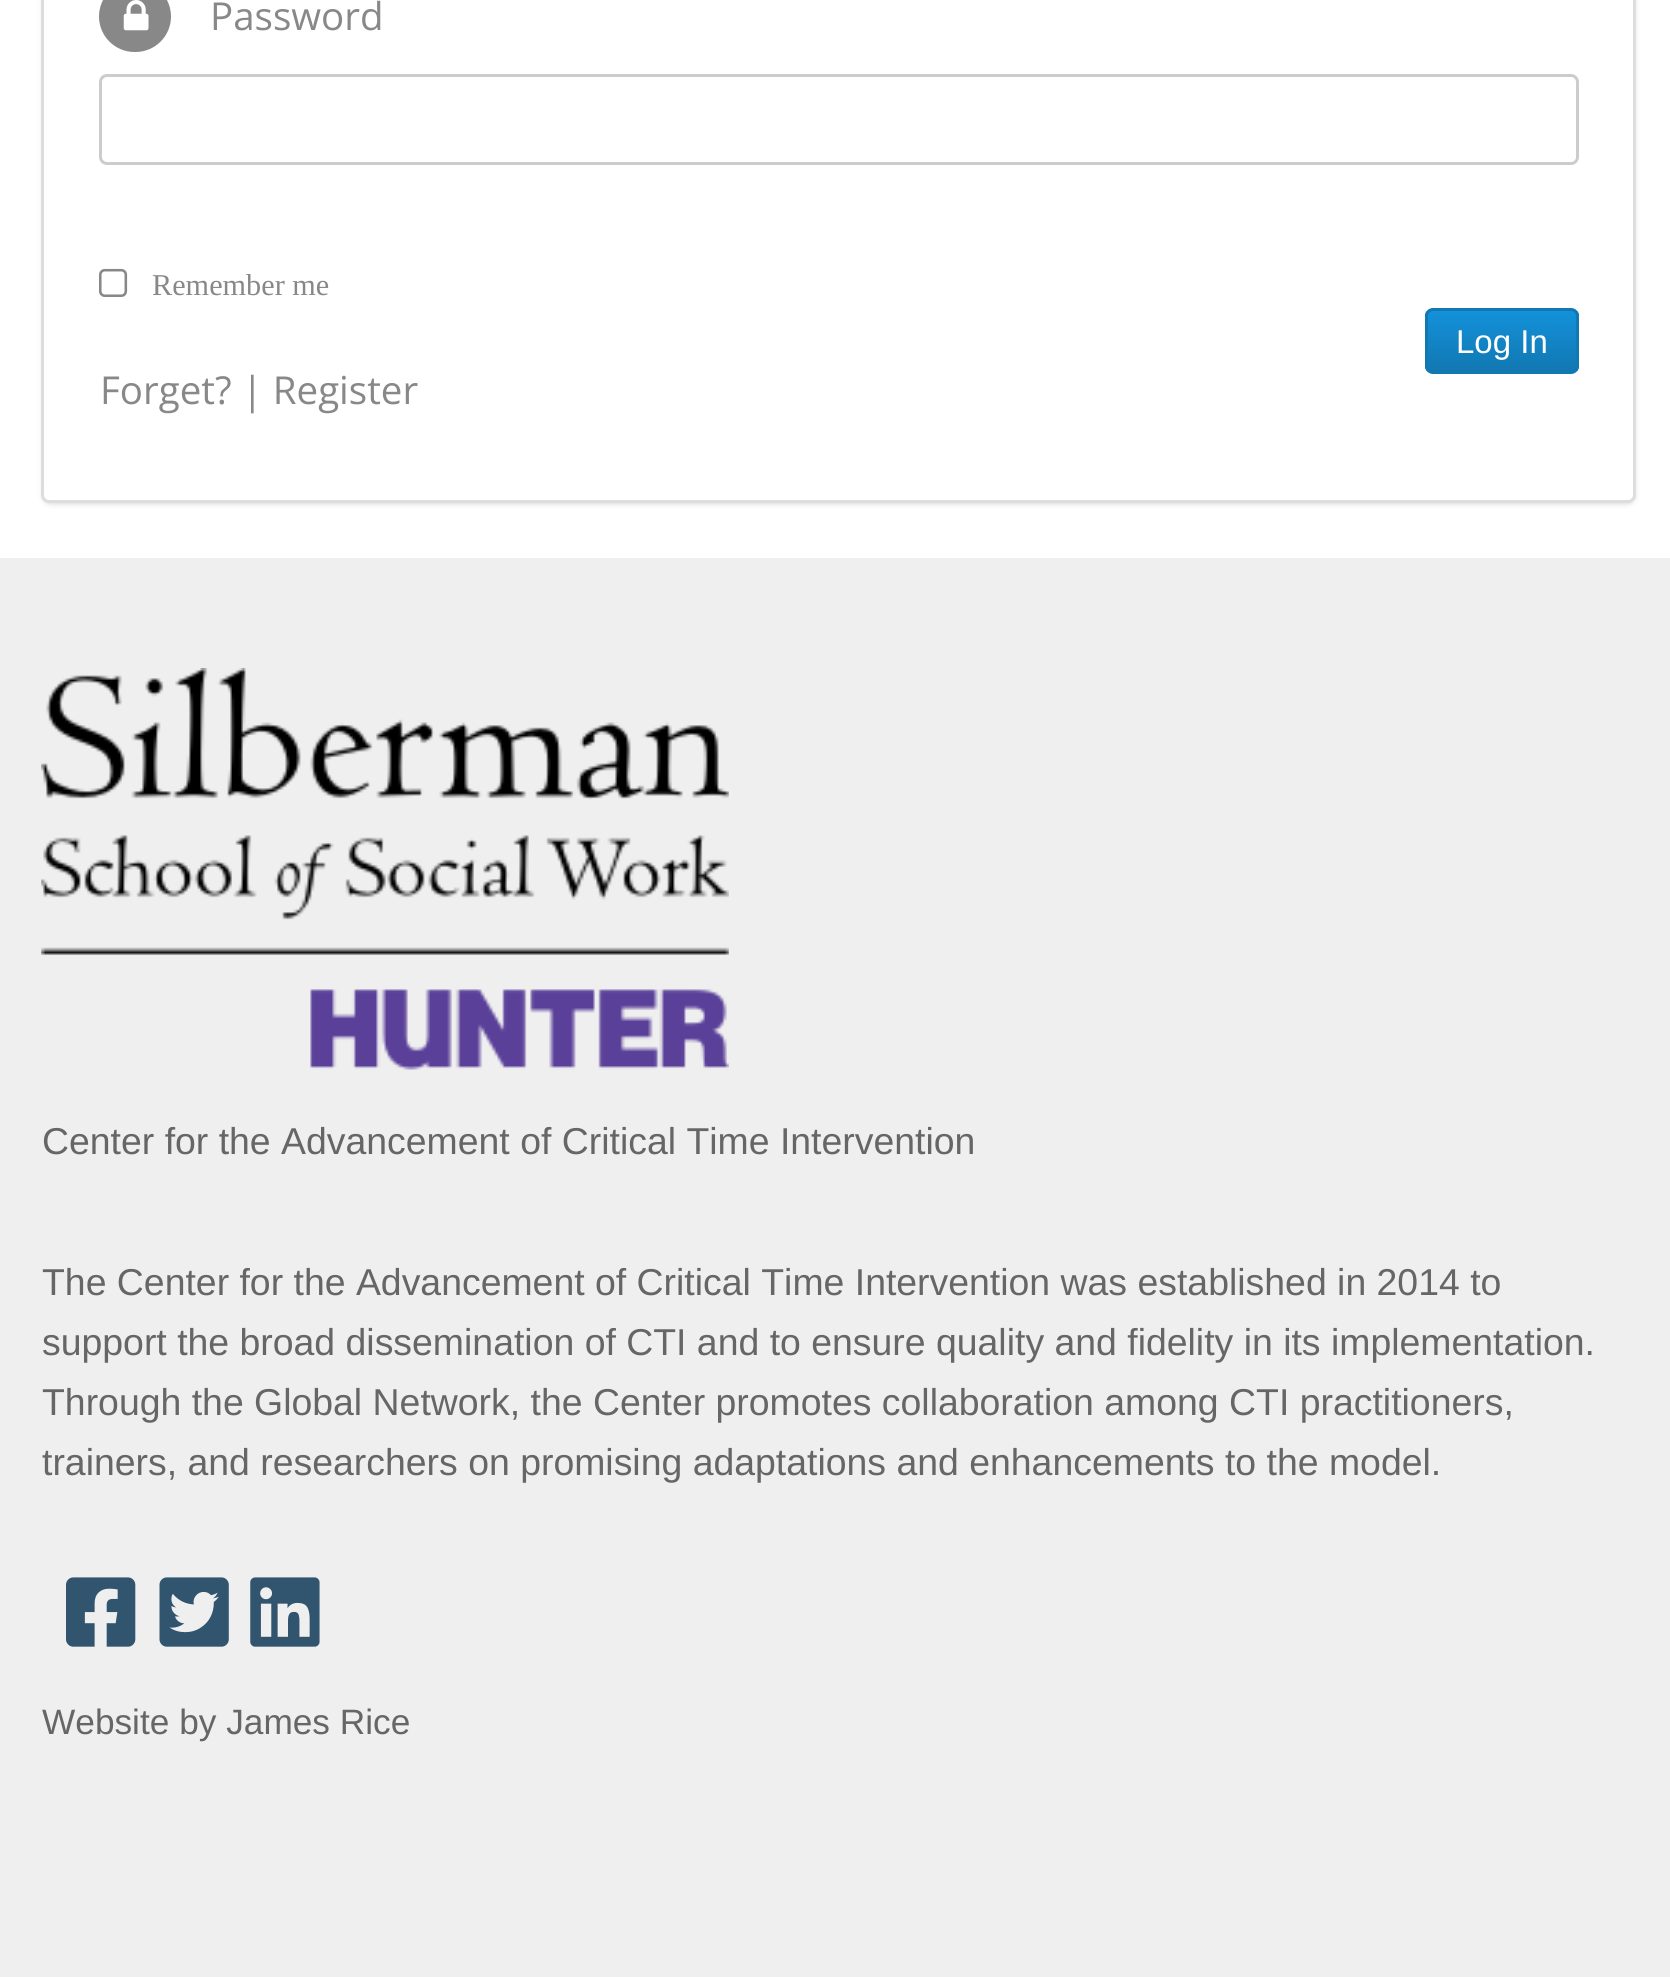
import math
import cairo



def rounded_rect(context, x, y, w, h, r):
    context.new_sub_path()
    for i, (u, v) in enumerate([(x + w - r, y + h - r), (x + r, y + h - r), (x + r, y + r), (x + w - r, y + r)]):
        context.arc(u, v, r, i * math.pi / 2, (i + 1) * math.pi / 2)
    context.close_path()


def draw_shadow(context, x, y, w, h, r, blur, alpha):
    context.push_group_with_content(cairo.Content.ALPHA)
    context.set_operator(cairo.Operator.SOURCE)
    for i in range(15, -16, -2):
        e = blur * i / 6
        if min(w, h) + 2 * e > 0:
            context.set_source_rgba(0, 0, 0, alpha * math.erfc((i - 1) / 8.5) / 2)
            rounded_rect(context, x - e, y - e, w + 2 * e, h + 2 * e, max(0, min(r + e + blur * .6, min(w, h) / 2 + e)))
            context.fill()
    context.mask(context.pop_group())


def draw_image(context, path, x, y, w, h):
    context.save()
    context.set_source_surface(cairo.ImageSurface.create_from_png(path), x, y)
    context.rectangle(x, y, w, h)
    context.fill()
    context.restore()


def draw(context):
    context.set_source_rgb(1, 1, 1)
    context.paint()
    context.set_source_rgb(204 / 255, 204 / 255, 204 / 255)
    draw_shadow(context, 44, -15, 1590, 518, 6, 3, 1)
    context.set_source_rgb(1, 1, 1)
    rounded_rect(context, 42.5, -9.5, 1592, 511, 6.5)
    context.fill_preserve()
    context.set_source_rgb(221 / 255, 221 / 255, 221 / 255)
    context.set_line_width(3)
    context.stroke()
    context.set_source_rgb(136 / 255, 136 / 255, 136 / 255)
    rounded_rect(context, 99, -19, 72, 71, 35.5)
    context.fill()
    draw_image(context, "images/1.png", 123, 0, 26, 31)
    rounded_rect(context, 100.5, 75.5, 1477, 88, 6.5)
    context.set_source_rgb(204 / 255, 204 / 255, 204 / 255)
    context.stroke()
    draw_image(context, "images/2.png", 99, 268, 29, 29)
    context.save()
    rounded_rect(context, 1425, 308, 154, 66, 8)
    context.clip()
    gradient = cairo.LinearGradient(1502, 311, 1502, 371)
    gradient.add_color_stop_rgba(0, 19 / 255, 145 / 255, 218 / 255, 1)
    gradient.add_color_stop_rgba(1, 18 / 255, 120 / 255, 178 / 255, 1)
    context.set_source(gradient)
    context.rectangle(1425, 311, 154, 60)
    context.fill()
    context.restore()
    rounded_rect(context, 1426.5, 309.5, 151, 63, 6.5)
    context.set_source_rgb(18 / 255, 120 / 255, 178 / 255)
    context.stroke()
    context.set_source_rgb(239 / 255, 239 / 255, 239 / 255)
    context.rectangle(0, 558, 1670, 1419)
    context.fill()
    draw_image(context, "images/3.png", 41, 668, 688, 402)
    draw_image(context, "images/4.png", 66, 1577, 70, 70)
    draw_image(context, "images/5.png", 159, 1577, 70, 70)
    draw_image(context, "images/6.png", 250, 1577, 70, 70)
    context.select_font_face("Open Sans")
    context.set_font_size(38.5)
    context.set_source_rgb(136 / 255, 136 / 255, 136 / 255)
    context.move_to(210, 30)
    context.show_text("Password")
    context.select_font_face("Liberation Serif")
    context.set_font_size(30.25)
    context.move_to(152, 295)
    context.show_text("Remember me")
    context.select_font_face("Liberation Sans")
    context.set_font_size(33)
    context.set_source_rgb(1, 1, 1)
    context.move_to(1456, 353)
    context.show_text("Log In")
    context.select_font_face("Open Sans")
    context.set_font_size(38.5)
    context.set_source_rgb(136 / 255, 136 / 255, 136 / 255)
    context.move_to(100, 404)
    context.show_text("Forget? | Register")
    context.select_font_face("Liberation Sans")
    context.set_font_size(37.4)
    context.set_source_rgb(102 / 255, 102 / 255, 102 / 255)
    context.move_to(42, 1154)
    context.show_text("Center for the Advancement of Critical Time Intervention")
    context.move_to(42, 1295)
    context.show_text("The Center for the Advancement of Critical Time Intervention was established in 2014 to")
    context.move_to(42, 1355)
    context.show_text("support the broad dissemination of CTI and to ensure quality and fidelity in its implementation.")
    context.move_to(42, 1415)
    context.show_text("Through the Global Network, the Center promotes collaboration among CTI practitioners,")
    context.move_to(42, 1475)
    context.show_text("trainers, and researchers on promising adaptations and enhancements to the model.")
    context.set_font_size(35.25)
    context.move_to(42, 1734)
    context.show_text("Website by James Rice")


surface = cairo.ImageSurface(cairo.Format.RGB24, 1670, 1977)
context = cairo.Context(surface)
options = cairo.FontOptions()
options.set_hint_metrics(cairo.HintMetrics.OFF)
options.set_hint_style(cairo.HintStyle.NONE)
context.set_font_options(options)
context.set_miter_limit(4)
draw(context)
surface.write_to_png("out.png")
